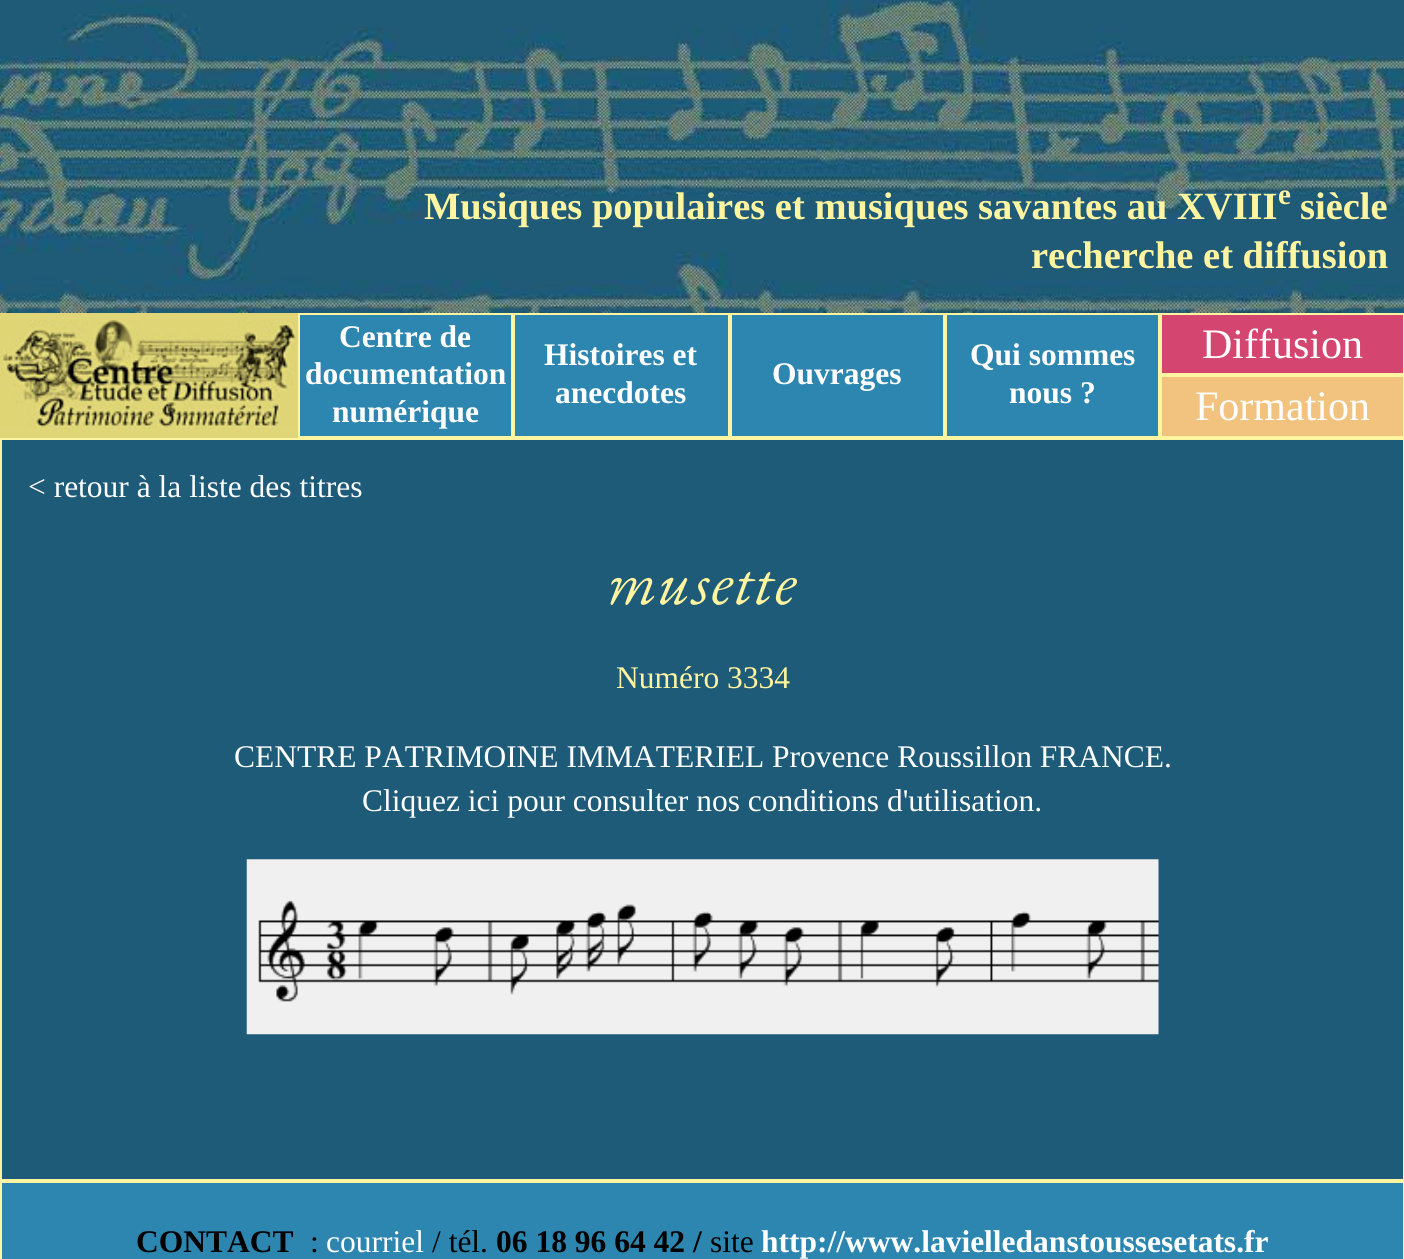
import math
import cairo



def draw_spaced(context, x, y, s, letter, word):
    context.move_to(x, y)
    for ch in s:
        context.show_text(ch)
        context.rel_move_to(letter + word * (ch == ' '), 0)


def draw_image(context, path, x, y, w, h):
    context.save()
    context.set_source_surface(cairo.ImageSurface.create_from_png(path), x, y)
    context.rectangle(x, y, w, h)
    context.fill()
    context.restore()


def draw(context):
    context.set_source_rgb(1, 1, 1)
    context.paint()
    draw_image(context, "images/1.png", 0, 0, 1404, 313)
    context.set_source_rgb(224 / 255, 214 / 255, 119 / 255)
    context.rectangle(0, 313, 298, 125)
    context.fill()
    draw_image(context, "images/2.png", 0, 320, 296, 109)
    context.set_source_rgb(44 / 255, 134 / 255, 176 / 255)
    context.rectangle(300, 315, 858, 121)
    context.fill()
    context.rectangle(299, 314, 213, 123)
    context.set_source_rgb(1, 244 / 255, 160 / 255)
    context.stroke()
    context.rectangle(514, 314, 215, 123)
    context.stroke()
    context.rectangle(731, 314, 213, 123)
    context.stroke()
    context.rectangle(946, 314, 213, 123)
    context.stroke()
    context.set_source_rgb(212 / 255, 70 / 255, 112 / 255)
    context.rectangle(1161, 314, 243, 60)
    context.fill_preserve()
    context.set_source_rgb(1, 244 / 255, 160 / 255)
    context.stroke()
    context.set_source_rgb(242 / 255, 195 / 255, 126 / 255)
    context.rectangle(1161, 376, 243, 61)
    context.fill_preserve()
    context.set_source_rgb(1, 244 / 255, 160 / 255)
    context.stroke()
    context.set_source_rgb(30 / 255, 91 / 255, 120 / 255)
    context.rectangle(1, 439, 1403, 741)
    context.fill_preserve()
    context.set_source_rgb(1, 244 / 255, 160 / 255)
    context.stroke()
    draw_image(context, "images/3.png", 246, 859, 913, 176)
    context.set_source_rgb(44 / 255, 134 / 255, 176 / 255)
    context.rectangle(1, 1182, 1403, 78)
    context.fill_preserve()
    context.set_source_rgb(1, 244 / 255, 160 / 255)
    context.stroke()
    context.select_font_face("Liberation Serif", cairo.FontSlant.NORMAL, cairo.FontWeight.BOLD)
    context.set_font_size(38.5)
    context.move_to(424, 219)
    context.show_text("Musiques populaires et musiques savantes au XVIII")
    context.set_font_size(29)
    context.move_to(1278, 204)
    context.show_text("e")
    context.set_font_size(38.5)
    context.move_to(1300, 219)
    context.show_text("siècle")
    context.move_to(1031, 268)
    context.show_text("recherche et diffusion")
    context.set_font_size(31.5)
    context.set_source_rgb(1, 1, 1)
    context.move_to(339, 347)
    context.show_text("Centre de")
    context.move_to(305, 384)
    context.show_text("documentation")
    context.move_to(332, 422)
    context.show_text("numérique")
    context.move_to(544, 365)
    context.show_text("Histoires et")
    context.move_to(555, 403)
    context.show_text("anecdotes")
    context.move_to(772, 384)
    context.show_text("Ouvrages")
    context.move_to(970, 365)
    context.show_text("Qui sommes")
    context.move_to(1009, 403)
    context.show_text("nous ?")
    context.select_font_face("Liberation Serif")
    context.set_font_size(42)
    context.move_to(1202, 358)
    context.show_text("Diffusion")
    context.move_to(1195, 420)
    context.show_text("Formation")
    context.set_font_size(31.5)
    context.move_to(28, 497)
    context.show_text("< retour à la liste des titres")
    context.select_font_face("EB Garamond", cairo.FontSlant.ITALIC)
    context.set_font_size(63)
    context.set_source_rgb(1, 244 / 255, 160 / 255)
    draw_spaced(context, 607, 604, "musette", 1.75, 0)
    context.select_font_face("Liberation Serif")
    context.set_font_size(31.5)
    context.move_to(616, 688)
    context.show_text("Numéro 3334")
    context.set_source_rgb(1, 1, 1)
    context.move_to(234, 767)
    context.show_text("CENTRE PATRIMOINE IMMATERIEL Provence Roussillon FRANCE.")
    context.move_to(362, 811)
    context.show_text("Cliquez ici pour consulter nos conditions d'utilisation.")
    context.select_font_face("Liberation Serif", cairo.FontSlant.NORMAL, cairo.FontWeight.BOLD)
    context.set_source_rgb(0, 0, 0)
    context.move_to(136, 1252)
    context.show_text("CONTACT")
    context.select_font_face("Liberation Serif")
    context.move_to(310, 1252)
    context.show_text(":")
    context.set_source_rgb(1, 1, 1)
    context.move_to(326, 1252)
    context.show_text("courriel")
    context.set_source_rgb(0, 0, 0)
    context.move_to(432, 1252)
    context.show_text("/ tél.")
    context.select_font_face("Liberation Serif", cairo.FontSlant.NORMAL, cairo.FontWeight.BOLD)
    context.move_to(496, 1252)
    context.show_text("06 18 96 64 42 /")
    context.select_font_face("Liberation Serif")
    context.move_to(710, 1252)
    context.show_text("site")
    context.select_font_face("Liberation Serif", cairo.FontSlant.NORMAL, cairo.FontWeight.BOLD)
    context.set_source_rgb(1, 1, 1)
    context.move_to(761, 1252)
    context.show_text("http://www.lavielledanstoussesetats.fr")


surface = cairo.ImageSurface(cairo.Format.RGB24, 1404, 1259)
context = cairo.Context(surface)
options = cairo.FontOptions()
options.set_hint_metrics(cairo.HintMetrics.OFF)
options.set_hint_style(cairo.HintStyle.NONE)
context.set_font_options(options)
context.set_miter_limit(4)
draw(context)
surface.write_to_png("out.png")
